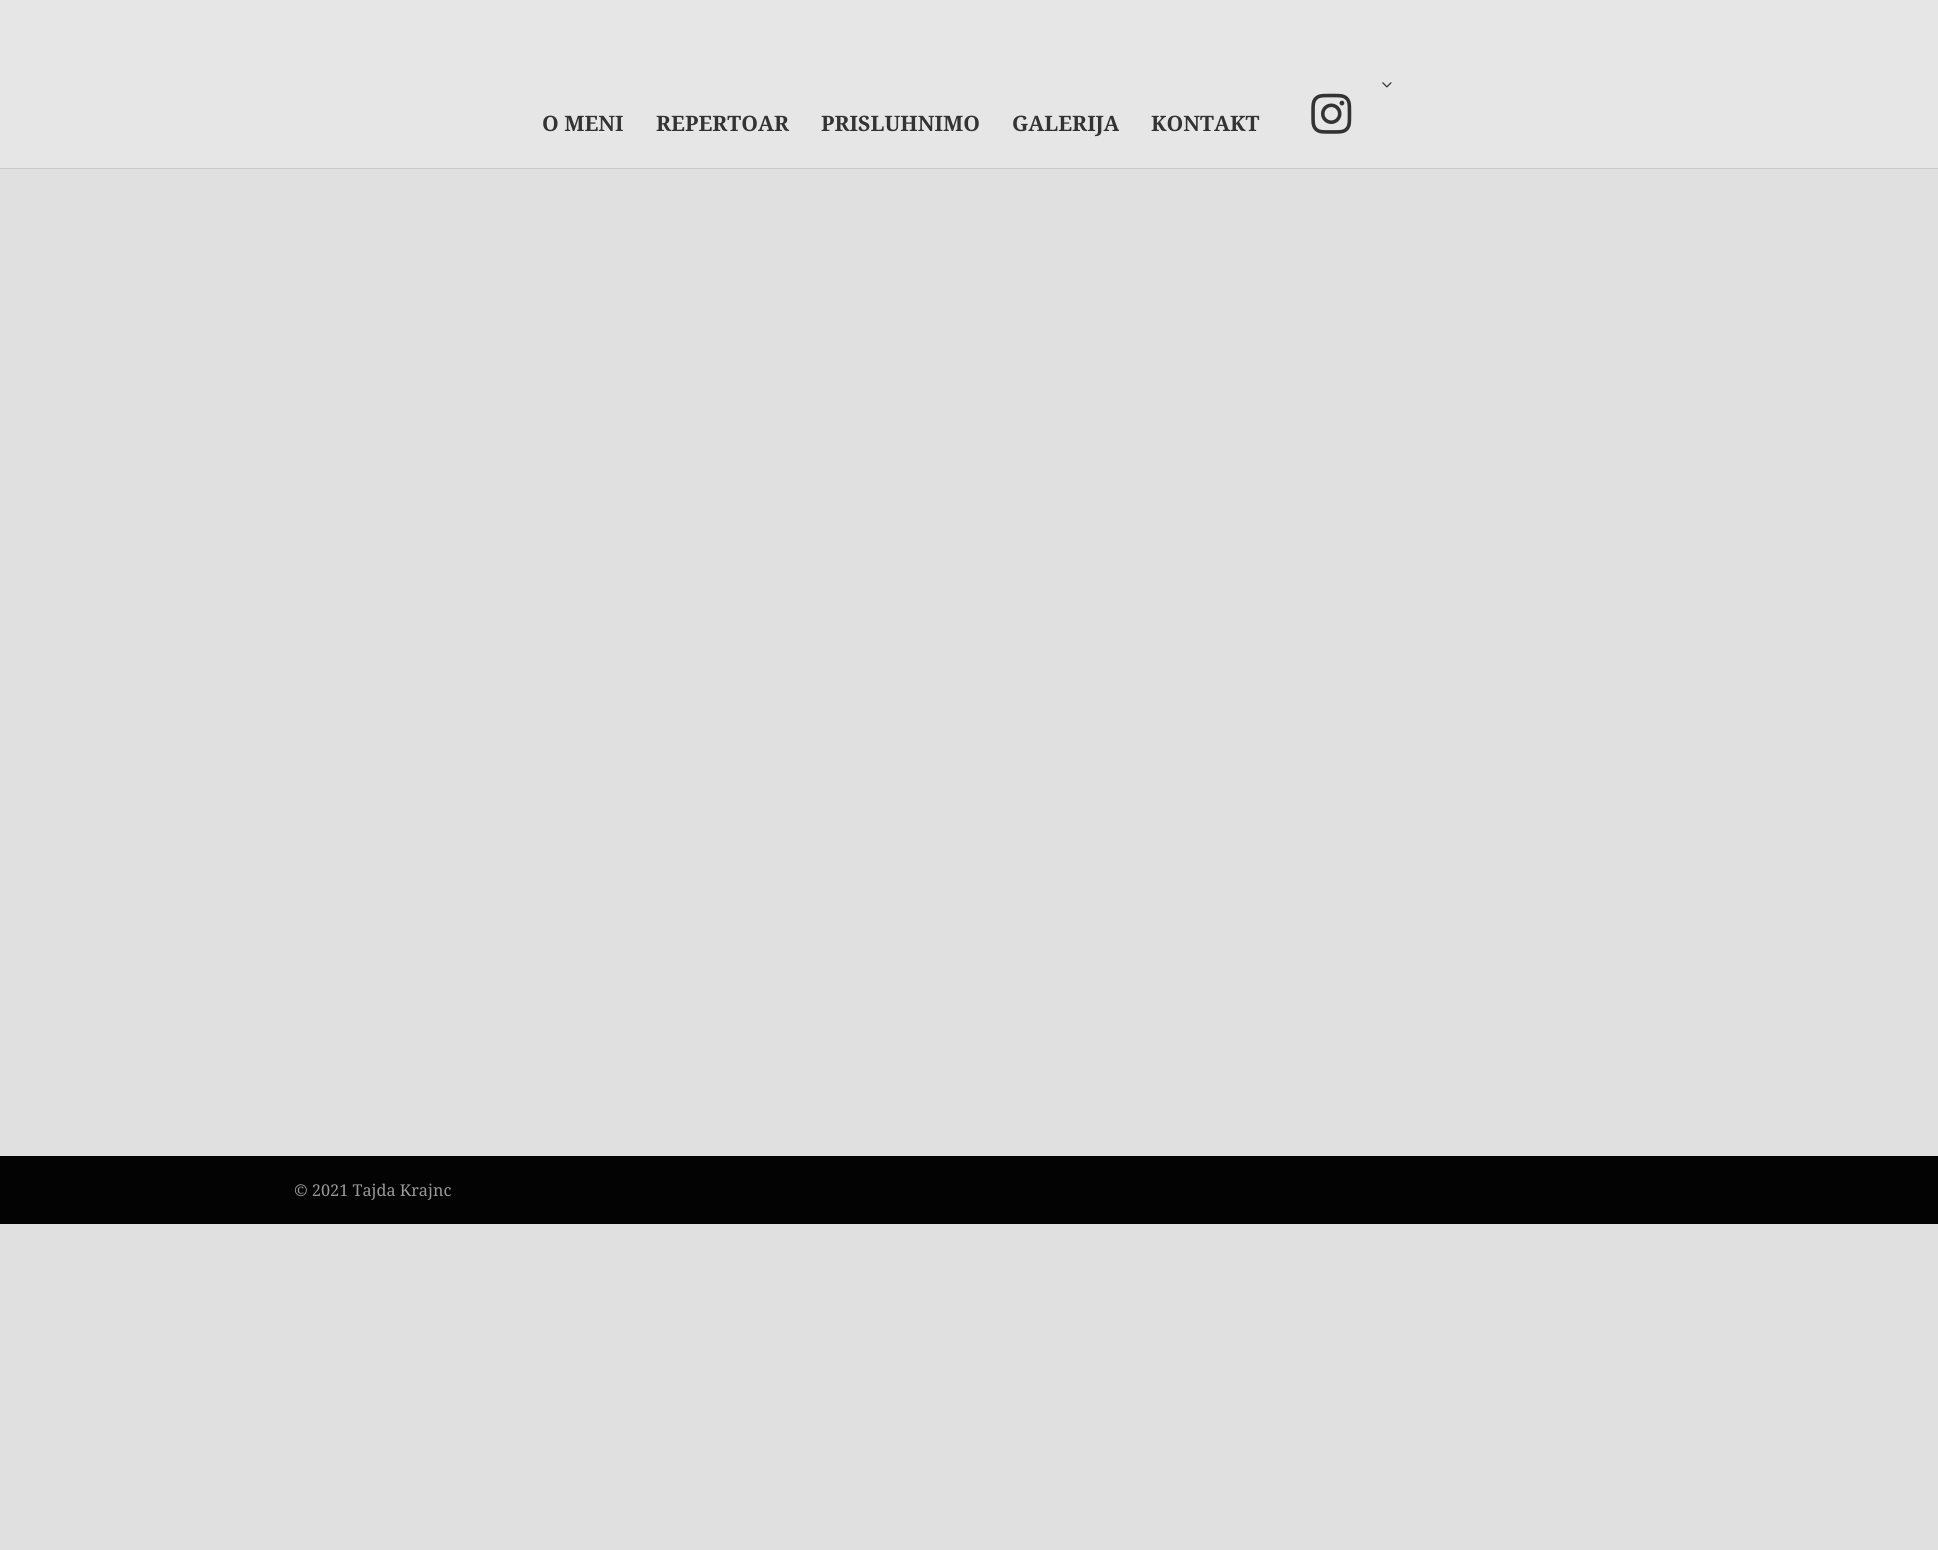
import math
import cairo



def draw_image(context, path, x, y, w, h):
    context.save()
    context.set_source_surface(cairo.ImageSurface.create_from_png(path), x, y)
    context.rectangle(x, y, w, h)
    context.fill()
    context.restore()


def draw(context):
    context.set_source_rgb(224 / 255, 224 / 255, 224 / 255)
    context.paint()
    context.set_source_rgb(202 / 255, 202 / 255, 202 / 255)
    context.new_path()
    context.move_to(0, 168)
    context.line_to(0, 169)
    context.line_to(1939, 169)
    context.line_to(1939, 1)
    context.line_to(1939, 168)
    context.close_path()
    context.fill()
    context.set_source_rgb(230 / 255, 230 / 255, 230 / 255)
    context.rectangle(0, 0, 1938, 168)
    context.fill()
    draw_image(context, "images/1.png", 1382, 82, 10, 6)
    draw_image(context, "images/2.png", 1311, 93, 41, 41)
    context.set_source_rgb(3 / 255, 3 / 255, 3 / 255)
    context.rectangle(0, 1156, 1938, 68)
    context.fill()
    context.select_font_face("Droid Serif", cairo.FontSlant.NORMAL, cairo.FontWeight.BOLD)
    context.set_font_size(21.25)
    context.set_source_rgb(51 / 255, 51 / 255, 51 / 255)
    context.move_to(542, 131)
    context.show_text("O MENI")
    context.move_to(656, 131)
    context.show_text("REPERTOAR")
    context.move_to(821, 131)
    context.show_text("PRISLUHNIMO")
    context.move_to(1012, 131)
    context.show_text("GALERIJA")
    context.move_to(1151, 131)
    context.show_text("KONTAKT")
    context.select_font_face("Droid Serif")
    context.set_font_size(16.25)
    context.set_source_rgb(153 / 255, 153 / 255, 153 / 255)
    context.move_to(294, 1196)
    context.show_text("© 2021 Tajda Krajnc")


surface = cairo.ImageSurface(cairo.Format.RGB24, 1938, 1550)
context = cairo.Context(surface)
options = cairo.FontOptions()
options.set_hint_metrics(cairo.HintMetrics.OFF)
options.set_hint_style(cairo.HintStyle.NONE)
context.set_font_options(options)
context.set_miter_limit(4)
draw(context)
surface.write_to_png("out.png")
